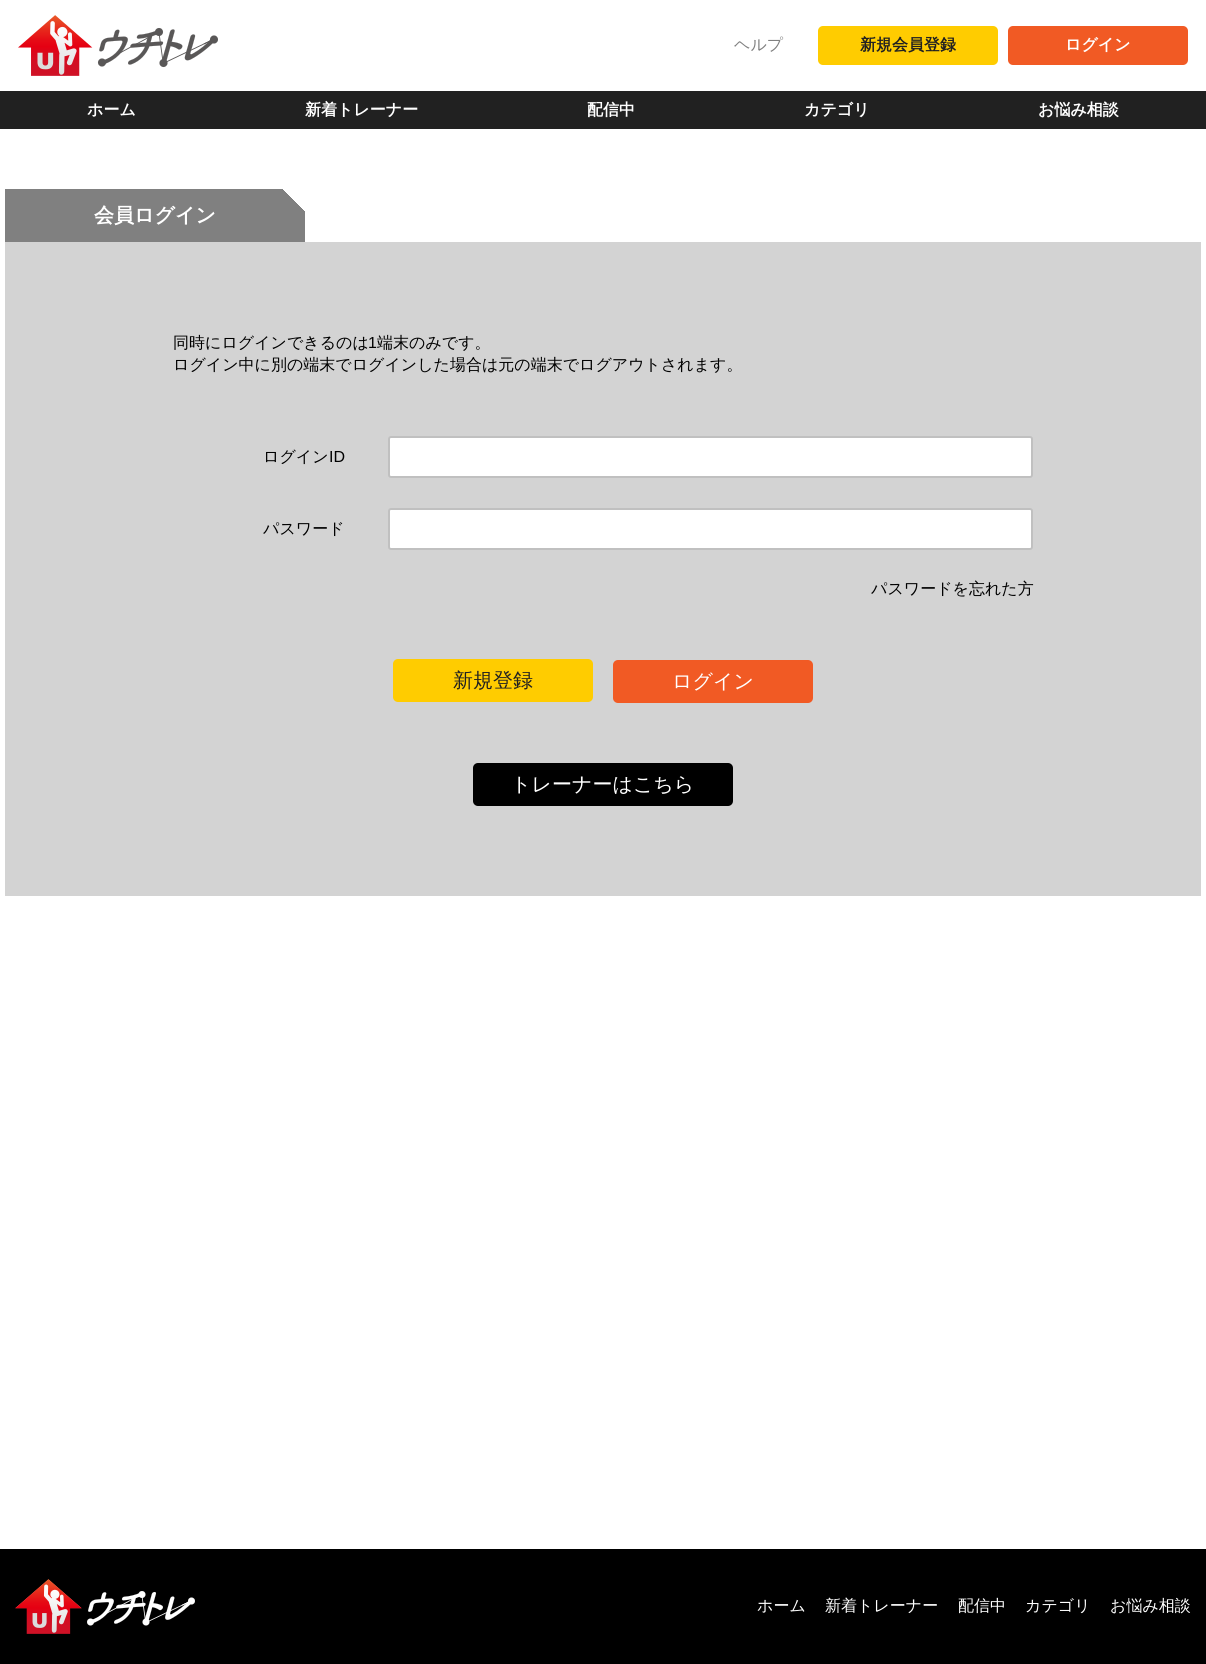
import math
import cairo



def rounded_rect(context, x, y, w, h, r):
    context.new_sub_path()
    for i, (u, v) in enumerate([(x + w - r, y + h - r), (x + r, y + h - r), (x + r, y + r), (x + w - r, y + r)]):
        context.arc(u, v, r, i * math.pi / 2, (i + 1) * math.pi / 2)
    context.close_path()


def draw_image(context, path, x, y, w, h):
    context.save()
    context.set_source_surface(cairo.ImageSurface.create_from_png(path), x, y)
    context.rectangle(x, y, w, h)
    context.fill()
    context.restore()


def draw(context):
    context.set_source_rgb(1, 1, 1)
    context.paint()
    draw_image(context, "images/1.png", 18, 15, 200, 61)
    context.set_source_rgb(1, 204 / 255, 0)
    rounded_rect(context, 818, 26, 180, 39, 5)
    context.fill()
    context.set_source_rgb(241 / 255, 90 / 255, 36 / 255)
    rounded_rect(context, 1008, 26, 180, 39, 5)
    context.fill()
    context.set_source_rgb(33 / 255, 33 / 255, 33 / 255)
    context.rectangle(0, 91, 1206, 38)
    context.fill()
    gradient = cairo.LinearGradient(274, 273, 186, 185)
    gradient.add_color_stop_rgba(0, 1, 1, 1, 1)
    gradient.add_color_stop_rgba(0, 128 / 255, 128 / 255, 128 / 255, 1)
    context.set_source(gradient)
    context.rectangle(155, 216, 150, 26)
    context.fill()
    gradient = cairo.LinearGradient(274, 158, 186, 246)
    gradient.add_color_stop_rgba(0.13, 1, 1, 1, 1)
    gradient.add_color_stop_rgba(0.13, 128 / 255, 128 / 255, 128 / 255, 1)
    context.set_source(gradient)
    context.rectangle(155, 189, 150, 27)
    context.fill()
    gradient = cairo.LinearGradient(36, 158, 124, 246)
    gradient.add_color_stop_rgba(0, 1, 1, 1, 1)
    gradient.add_color_stop_rgba(0, 128 / 255, 128 / 255, 128 / 255, 1)
    context.set_source(gradient)
    context.rectangle(5, 189, 150, 27)
    context.fill()
    gradient = cairo.LinearGradient(36, 273, 124, 185)
    gradient.add_color_stop_rgba(0, 1, 1, 1, 1)
    gradient.add_color_stop_rgba(0, 128 / 255, 128 / 255, 128 / 255, 1)
    context.set_source(gradient)
    context.rectangle(5, 216, 150, 26)
    context.fill()
    context.set_source_rgb(211 / 255, 211 / 255, 211 / 255)
    context.rectangle(5, 242, 1196, 654)
    context.fill()
    context.set_source_rgb(1, 1, 1)
    rounded_rect(context, 389, 437, 643, 40, 2)
    context.fill_preserve()
    context.set_source_rgb(192 / 255, 192 / 255, 192 / 255)
    context.stroke()
    context.set_source_rgb(1, 1, 1)
    rounded_rect(context, 389, 509, 643, 40, 2)
    context.fill_preserve()
    context.set_source_rgb(192 / 255, 192 / 255, 192 / 255)
    context.stroke()
    context.set_source_rgb(1, 204 / 255, 0)
    rounded_rect(context, 393, 659, 200, 43, 5)
    context.fill()
    context.set_source_rgb(241 / 255, 90 / 255, 36 / 255)
    rounded_rect(context, 613, 660, 200, 43, 5)
    context.fill()
    context.set_source_rgb(0, 0, 0)
    rounded_rect(context, 473, 763, 260, 43, 5)
    context.fill()
    context.rectangle(0, 1549, 1206, 115)
    context.fill()
    draw_image(context, "images/2.png", 15, 1579, 180, 55)
    context.select_font_face("WenQuanYi Zen Hei Medium")
    context.set_font_size(16)
    context.set_source_rgb(128 / 255, 128 / 255, 128 / 255)
    context.move_to(734, 50)
    context.show_text("ヘルプ")
    context.select_font_face("WenQuanYi Zen Hei", cairo.FontSlant.NORMAL, cairo.FontWeight.BOLD)
    context.set_source_rgb(33 / 255, 33 / 255, 33 / 255)
    context.move_to(860, 50)
    context.show_text("新規会員登録")
    context.set_source_rgb(1, 1, 1)
    context.move_to(1065, 50)
    context.show_text("ログイン")
    context.move_to(87, 115)
    context.show_text("ホーム")
    context.move_to(305, 115)
    context.show_text("新着トレーナー")
    context.move_to(587, 115)
    context.show_text("配信中")
    context.move_to(804, 115)
    context.show_text("カテゴリ")
    context.move_to(1038, 115)
    context.show_text("お悩み相談")
    context.set_font_size(20)
    context.move_to(94, 222)
    context.show_text("会員ログイン")
    context.select_font_face("WenQuanYi Zen Hei Medium")
    context.set_font_size(16)
    context.set_source_rgb(0, 0, 0)
    context.move_to(173, 348)
    context.show_text("同時にログインできるのは")
    context.select_font_face("Liberation Sans")
    context.move_to(368, 348)
    context.show_text("1")
    context.select_font_face("WenQuanYi Zen Hei Medium")
    context.move_to(377, 348)
    context.show_text("端末のみです。")
    context.move_to(173, 370)
    context.show_text("ログイン中に別の端末でログインした場合は元の端末でログアウトされます。")
    context.move_to(263, 462)
    context.show_text("ログイン")
    context.select_font_face("Liberation Sans")
    context.move_to(329, 462)
    context.show_text("ID")
    context.select_font_face("WenQuanYi Zen Hei Medium")
    context.move_to(263, 534)
    context.show_text("パスワード")
    context.move_to(871, 594)
    context.show_text("パスワードを忘れた方")
    context.set_font_size(20)
    context.set_source_rgb(33 / 255, 33 / 255, 33 / 255)
    context.move_to(453, 687)
    context.show_text("新規登録")
    context.set_source_rgb(1, 1, 1)
    context.move_to(672, 688)
    context.show_text("ログイン")
    context.move_to(511, 791)
    context.show_text("トレーナーはこちら")
    context.set_font_size(16)
    context.move_to(757, 1611)
    context.show_text("ホーム")
    context.move_to(825, 1611)
    context.show_text("新着トレーナー")
    context.move_to(958, 1611)
    context.show_text("配信中")
    context.move_to(1025, 1611)
    context.show_text("カテゴリ")
    context.move_to(1110, 1611)
    context.show_text("お悩み相談")


surface = cairo.ImageSurface(cairo.Format.RGB24, 1206, 1664)
context = cairo.Context(surface)
options = cairo.FontOptions()
options.set_hint_metrics(cairo.HintMetrics.OFF)
options.set_hint_style(cairo.HintStyle.NONE)
context.set_font_options(options)
context.set_miter_limit(4)
draw(context)
surface.write_to_png("out.png")
